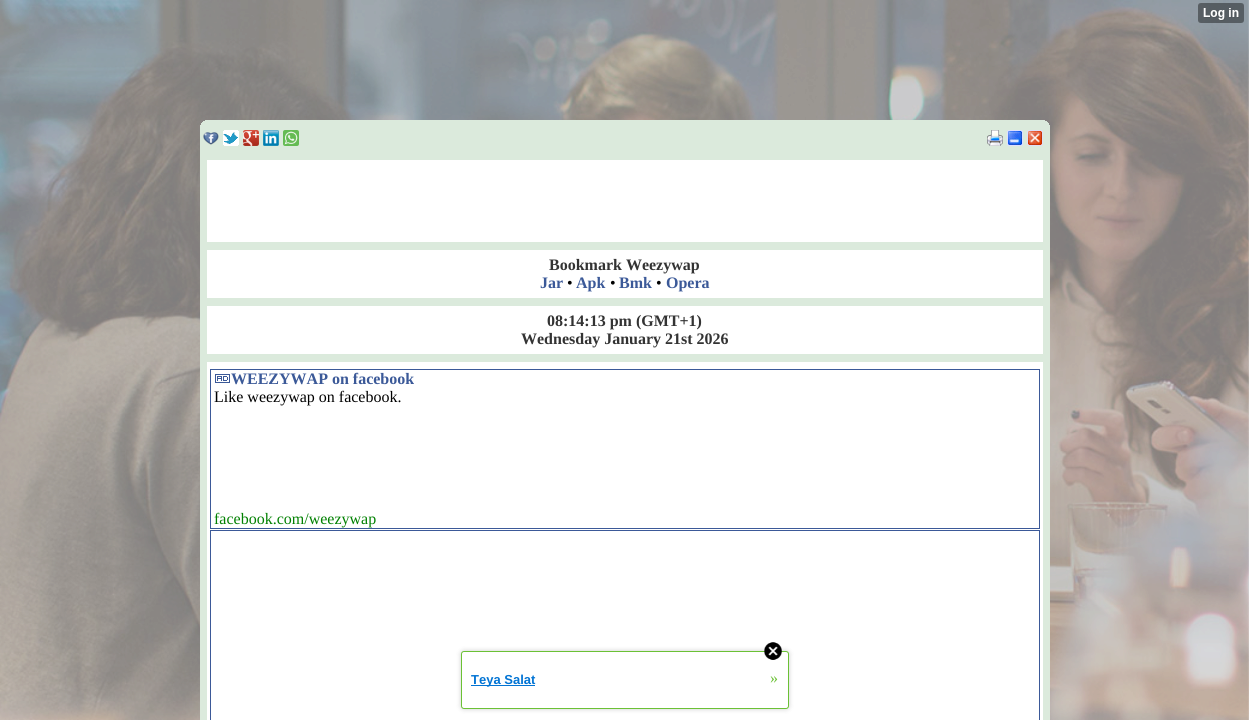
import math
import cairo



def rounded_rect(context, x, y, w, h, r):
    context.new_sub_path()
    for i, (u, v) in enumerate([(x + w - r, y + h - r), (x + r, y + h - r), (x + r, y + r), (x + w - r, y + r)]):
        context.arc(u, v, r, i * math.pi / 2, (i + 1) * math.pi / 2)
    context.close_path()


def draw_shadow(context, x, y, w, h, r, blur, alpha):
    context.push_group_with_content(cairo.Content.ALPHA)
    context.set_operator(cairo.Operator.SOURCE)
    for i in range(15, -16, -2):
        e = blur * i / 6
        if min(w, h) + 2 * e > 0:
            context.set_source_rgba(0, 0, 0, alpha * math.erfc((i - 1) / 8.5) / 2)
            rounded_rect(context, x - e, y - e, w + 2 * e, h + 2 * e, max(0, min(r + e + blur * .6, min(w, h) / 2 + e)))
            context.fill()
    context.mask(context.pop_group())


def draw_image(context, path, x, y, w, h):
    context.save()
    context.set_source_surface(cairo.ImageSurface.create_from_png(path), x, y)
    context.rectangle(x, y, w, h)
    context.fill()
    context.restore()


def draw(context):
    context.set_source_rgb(1, 1, 1)
    context.paint()
    draw_image(context, "images/1.png", 0, 0, 1249, 720)
    draw_image(context, "images/2.png", 0, 0, 1249, 720)
    draw_image(context, "images/3.png", 1198, 3, 46, 20)
    context.set_source_rgb(219 / 255, 234 / 255, 220 / 255)
    context.rectangle(205, 120, 840, 1)
    context.fill()
    context.rectangle(203, 121, 844, 1)
    context.fill()
    context.rectangle(202, 122, 846, 1)
    context.fill()
    context.rectangle(201, 123, 848, 2)
    context.fill()
    context.rectangle(200, 125, 850, 595)
    context.fill()
    draw_image(context, "images/4.png", 203, 132, 16, 13)
    draw_image(context, "images/5.png", 223, 130, 16, 16)
    draw_image(context, "images/6.png", 243, 130, 16, 16)
    draw_image(context, "images/7.png", 263, 130, 16, 16)
    draw_image(context, "images/8.png", 283, 130, 16, 16)
    draw_image(context, "images/9.png", 987, 130, 16, 16)
    draw_image(context, "images/10.png", 1007, 130, 16, 16)
    draw_image(context, "images/11.png", 1027, 130, 16, 16)
    context.set_source_rgb(1, 1, 1)
    context.rectangle(207, 160, 836, 82)
    context.fill()
    context.rectangle(207, 250, 836, 48)
    context.fill()
    context.rectangle(207, 306, 836, 48)
    context.fill()
    context.rectangle(207, 362, 836, 358)
    context.fill()
    context.rectangle(210.5, 369.5, 829, 159)
    context.set_source_rgb(59 / 255, 89 / 255, 152 / 255)
    context.set_line_width(1)
    context.stroke()
    draw_image(context, "images/12.png", 215, 374, 15, 9)
    context.rectangle(210.5, 530.5, 829, 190)
    context.stroke()
    context.set_source_rgb(0, 0, 0)
    draw_shadow(context, 461, 651, 328, 58, 3, 2.5, 0.2)
    context.set_source_rgb(1, 1, 1)
    rounded_rect(context, 461.5, 651.5, 327, 57, 2.5)
    context.fill_preserve()
    context.set_source_rgb(107 / 255, 193 / 255, 53 / 255)
    context.stroke()
    draw_image(context, "images/13.png", 764, 642, 18, 18)
    context.set_source_rgb(2 / 255, 116 / 255, 212 / 255)
    context.rectangle(471, 685, 64, 1)
    context.fill()
    context.select_font_face("Liberation Serif", cairo.FontSlant.NORMAL, cairo.FontWeight.BOLD)
    context.set_font_size(16)
    context.set_source_rgb(51 / 255, 51 / 255, 51 / 255)
    context.move_to(549, 270)
    context.show_text("Bookmark Weezywap")
    context.set_source_rgb(59 / 255, 89 / 255, 152 / 255)
    context.move_to(540, 288)
    context.show_text("Jar")
    context.select_font_face("Liberation Serif")
    context.set_source_rgb(0, 0, 0)
    context.move_to(567, 288)
    context.show_text("•")
    context.select_font_face("Liberation Serif", cairo.FontSlant.NORMAL, cairo.FontWeight.BOLD)
    context.set_source_rgb(59 / 255, 89 / 255, 152 / 255)
    context.move_to(576, 288)
    context.show_text("Apk")
    context.select_font_face("Liberation Serif")
    context.set_source_rgb(0, 0, 0)
    context.move_to(610, 288)
    context.show_text("•")
    context.select_font_face("Liberation Serif", cairo.FontSlant.NORMAL, cairo.FontWeight.BOLD)
    context.set_source_rgb(59 / 255, 89 / 255, 152 / 255)
    context.move_to(619, 288)
    context.show_text("Bmk")
    context.select_font_face("Liberation Serif")
    context.set_source_rgb(0, 0, 0)
    context.move_to(656, 288)
    context.show_text("•")
    context.select_font_face("Liberation Serif", cairo.FontSlant.NORMAL, cairo.FontWeight.BOLD)
    context.set_source_rgb(59 / 255, 89 / 255, 152 / 255)
    context.move_to(666, 288)
    context.show_text("Opera")
    context.set_source_rgb(51 / 255, 51 / 255, 51 / 255)
    context.move_to(547, 326)
    context.show_text("08:14:13 pm (GMT+1)")
    context.move_to(521, 344)
    context.show_text("Wednesday January 21st 2026")
    context.set_source_rgb(59 / 255, 89 / 255, 152 / 255)
    context.move_to(231, 384)
    context.show_text("WEEZYWAP on facebook")
    context.select_font_face("Liberation Serif")
    context.set_source_rgb(0, 0, 0)
    context.move_to(214, 402)
    context.show_text("Like weezywap on facebook.")
    context.set_source_rgb(0, 128 / 255, 0)
    context.move_to(214, 524)
    context.show_text("facebook.com/weezywap")
    context.select_font_face("Liberation Sans", cairo.FontSlant.NORMAL, cairo.FontWeight.BOLD)
    context.set_font_size(13)
    context.set_source_rgb(2 / 255, 116 / 255, 212 / 255)
    context.move_to(471, 684)
    context.show_text("Teya Salat")
    context.select_font_face("Liberation Serif")
    context.set_font_size(16)
    context.set_source_rgb(107 / 255, 193 / 255, 53 / 255)
    context.move_to(770, 683)
    context.show_text("»")


surface = cairo.ImageSurface(cairo.Format.RGB24, 1249, 720)
context = cairo.Context(surface)
options = cairo.FontOptions()
options.set_hint_metrics(cairo.HintMetrics.OFF)
options.set_hint_style(cairo.HintStyle.NONE)
context.set_font_options(options)
context.set_miter_limit(4)
draw(context)
surface.write_to_png("out.png")
